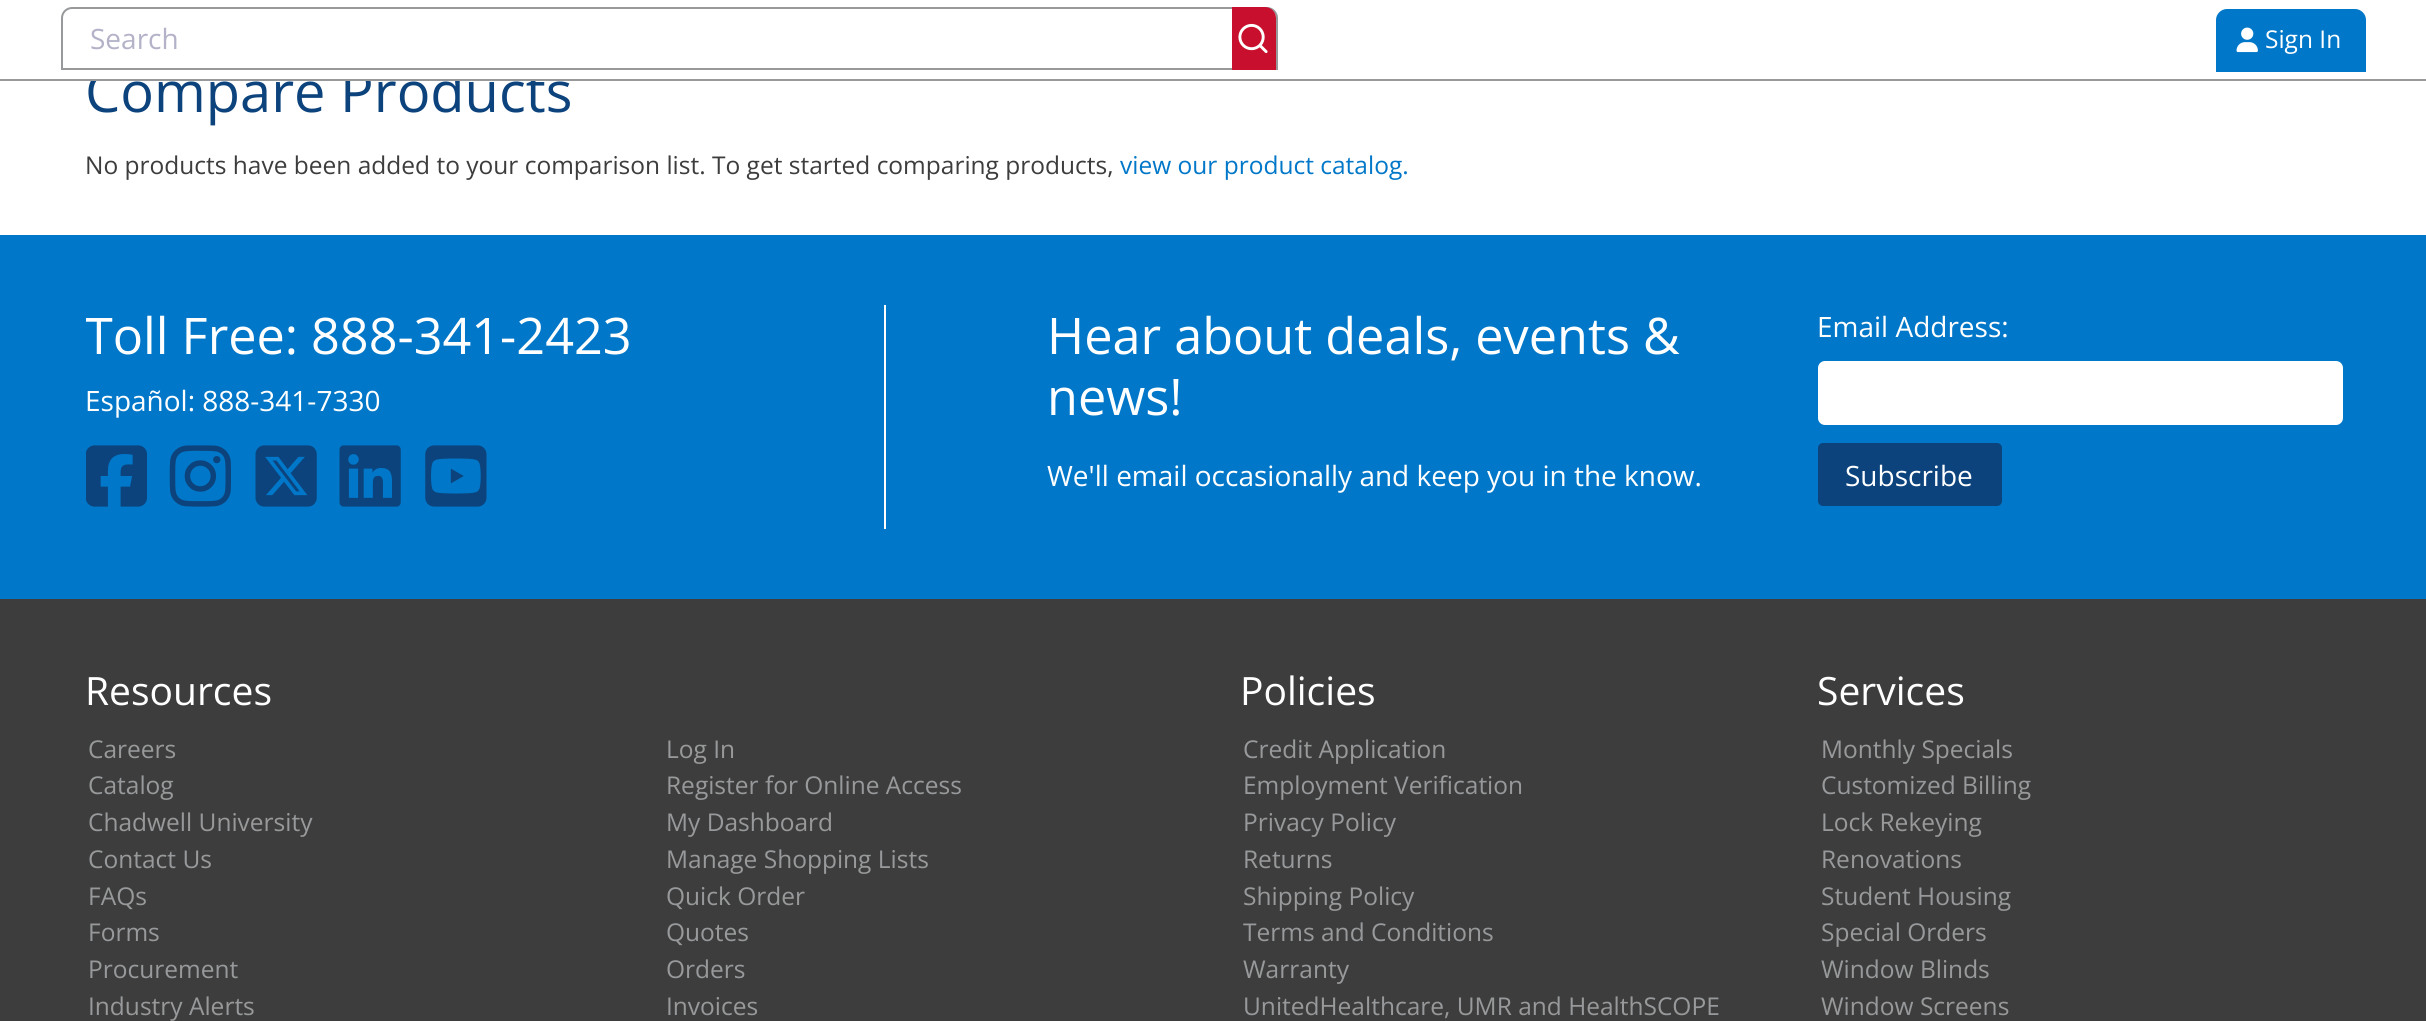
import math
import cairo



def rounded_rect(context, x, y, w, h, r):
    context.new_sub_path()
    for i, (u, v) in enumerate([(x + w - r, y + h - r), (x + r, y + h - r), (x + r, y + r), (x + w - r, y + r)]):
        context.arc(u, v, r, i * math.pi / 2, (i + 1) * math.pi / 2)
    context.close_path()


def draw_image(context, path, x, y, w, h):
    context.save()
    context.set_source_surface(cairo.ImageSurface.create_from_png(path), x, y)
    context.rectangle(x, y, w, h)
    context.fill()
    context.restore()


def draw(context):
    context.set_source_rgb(1, 1, 1)
    context.paint()
    context.set_source_rgb(0, 119 / 255, 200 / 255)
    context.new_path()
    context.move_to(2227, 9)
    context.line_to(2355, 9)
    context.curve_to(2361, 9, 2366, 14, 2366, 20)
    context.line_to(2366, 72)
    context.line_to(2216, 72)
    context.line_to(2216, 20)
    context.curve_to(2216, 14, 2221, 9, 2227, 9)
    context.close_path()
    context.fill()
    draw_image(context, "images/2.png", 2236, 27, 22, 26)
    context.rectangle(0, 235, 2426, 364)
    context.fill()
    context.set_source_rgb(1, 1, 1)
    context.rectangle(884, 305, 2, 224)
    context.fill()
    draw_image(context, "images/3.png", 86, 445, 61, 62)
    draw_image(context, "images/4.png", 169, 445, 62, 62)
    draw_image(context, "images/5.png", 255, 445, 62, 62)
    draw_image(context, "images/6.png", 339, 445, 62, 62)
    draw_image(context, "images/7.png", 425, 445, 62, 62)
    rounded_rect(context, 1818, 361, 525, 64, 7)
    context.fill()
    context.set_source_rgb(12 / 255, 67 / 255, 124 / 255)
    rounded_rect(context, 1819, 444, 182, 61, 4)
    context.fill_preserve()
    context.stroke()
    context.set_source_rgb(61 / 255, 61 / 255, 61 / 255)
    context.rectangle(0, 599, 2426, 422)
    context.fill()
    context.select_font_face("Open Sans")
    context.set_font_size(24.5)
    context.set_source_rgb(1, 1, 1)
    context.move_to(2265, 48)
    context.show_text("Sign In")
    context.set_font_size(56)
    context.set_source_rgb(12 / 255, 67 / 255, 124 / 255)
    context.move_to(85, 112)
    context.show_text("Compare Products")
    context.set_source_rgb(1, 1, 1)
    context.rectangle(91, 69, 445, 10)
    context.fill()
    context.new_path()
    context.move_to(72, 8)
    context.line_to(1267, 8)
    context.curve_to(1272.5, 8, 1277, 12.5, 1277, 18)
    context.line_to(1277, 69)
    context.line_to(62, 69)
    context.line_to(62, 18)
    context.curve_to(62, 12.5, 66.5, 8, 72, 8)
    context.close_path()
    context.set_source_rgb(151 / 255, 153 / 255, 155 / 255)
    context.stroke()
    context.set_font_size(28)
    context.set_source_rgb(179 / 255, 178 / 255, 200 / 255)
    context.move_to(90, 49)
    context.show_text("Search")
    context.set_source_rgb(200 / 255, 16 / 255, 46 / 255)
    context.new_path()
    context.move_to(1232, 7)
    context.line_to(1265, 7)
    context.curve_to(1271, 7, 1276, 12, 1276, 18)
    context.line_to(1276, 70)
    context.line_to(1232, 70)
    context.close_path()
    context.fill()
    draw_image(context, "images/1.png", 1238, 23, 30, 31)
    context.set_source_rgb(151 / 255, 153 / 255, 155 / 255)
    context.rectangle(0, 79, 2426, 2)
    context.fill()
    context.set_font_size(24.5)
    context.set_source_rgb(61 / 255, 61 / 255, 61 / 255)
    context.move_to(85, 174)
    context.show_text("No products have been added to your comparison list. To get started comparing products,")
    context.set_source_rgb(0, 119 / 255, 200 / 255)
    context.move_to(1120, 174)
    context.show_text("view our product catalog.")
    context.save()
    context.rectangle(86, 305, 910, 224)
    context.clip()
    context.set_font_size(50.4)
    context.set_source_rgb(1, 1, 1)
    context.move_to(85, 354)
    context.show_text("Toll Free:")
    context.restore()
    context.set_font_size(50.4)
    context.set_source_rgb(1, 1, 1)
    context.move_to(311, 354)
    context.show_text("888-341-2423")
    context.set_font_size(28)
    context.move_to(85, 411)
    context.show_text("Español: 888-341-7330")
    context.set_font_size(50.4)
    context.move_to(1047, 354)
    context.show_text("Hear about deals, events &")
    context.move_to(1047, 415)
    context.show_text("news!")
    context.set_font_size(28)
    context.move_to(1047, 486)
    context.show_text("We'll email occasionally and keep you in the know.")
    context.move_to(1817, 337)
    context.show_text("Email Address:")
    context.move_to(1845, 486)
    context.show_text("Subscribe")
    context.set_font_size(39)
    context.move_to(85, 705)
    context.show_text("Resources")
    context.set_font_size(24.5)
    context.set_source_rgb(151 / 255, 153 / 255, 155 / 255)
    context.move_to(88, 758)
    context.show_text("Careers")
    context.move_to(88, 794)
    context.show_text("Catalog")
    context.move_to(88, 831)
    context.show_text("Chadwell University")
    context.move_to(88, 868)
    context.show_text("Contact Us")
    context.move_to(88, 905)
    context.show_text("FAQs")
    context.move_to(88, 941)
    context.show_text("Forms")
    context.move_to(88, 978)
    context.show_text("Procurement")
    context.move_to(88, 1015)
    context.show_text("Industry Alerts")
    context.move_to(666, 758)
    context.show_text("Log In")
    context.move_to(666, 794)
    context.show_text("Register for Online Access")
    context.move_to(666, 831)
    context.show_text("My Dashboard")
    context.move_to(666, 868)
    context.show_text("Manage Shopping Lists")
    context.move_to(666, 905)
    context.show_text("Quick Order")
    context.move_to(666, 941)
    context.show_text("Quotes")
    context.move_to(666, 978)
    context.show_text("Orders")
    context.move_to(666, 1015)
    context.show_text("Invoices")
    context.set_font_size(39)
    context.set_source_rgb(1, 1, 1)
    context.move_to(1240, 705)
    context.show_text("Policies")
    context.set_font_size(24.5)
    context.set_source_rgb(151 / 255, 153 / 255, 155 / 255)
    context.move_to(1243, 758)
    context.show_text("Credit Application")
    context.move_to(1243, 794)
    context.show_text("Employment Verification")
    context.move_to(1243, 831)
    context.show_text("Privacy Policy")
    context.move_to(1243, 868)
    context.show_text("Returns")
    context.move_to(1243, 905)
    context.show_text("Shipping Policy")
    context.move_to(1243, 941)
    context.show_text("Terms and Conditions")
    context.move_to(1243, 978)
    context.show_text("Warranty")
    context.move_to(1243, 1015)
    context.show_text("UnitedHealthcare, UMR and HealthSCOPE")
    context.set_font_size(39)
    context.set_source_rgb(1, 1, 1)
    context.move_to(1817, 705)
    context.show_text("Services")
    context.set_font_size(24.5)
    context.set_source_rgb(151 / 255, 153 / 255, 155 / 255)
    context.move_to(1821, 758)
    context.show_text("Monthly Specials")
    context.move_to(1821, 794)
    context.show_text("Customized Billing")
    context.move_to(1821, 831)
    context.show_text("Lock Rekeying")
    context.move_to(1821, 868)
    context.show_text("Renovations")
    context.move_to(1821, 905)
    context.show_text("Student Housing")
    context.move_to(1821, 941)
    context.show_text("Special Orders")
    context.move_to(1821, 978)
    context.show_text("Window Blinds")
    context.move_to(1821, 1015)
    context.show_text("Window Screens")


surface = cairo.ImageSurface(cairo.Format.RGB24, 2426, 1021)
context = cairo.Context(surface)
options = cairo.FontOptions()
options.set_hint_metrics(cairo.HintMetrics.OFF)
options.set_hint_style(cairo.HintStyle.NONE)
context.set_font_options(options)
context.set_miter_limit(4)
draw(context)
surface.write_to_png("out.png")
